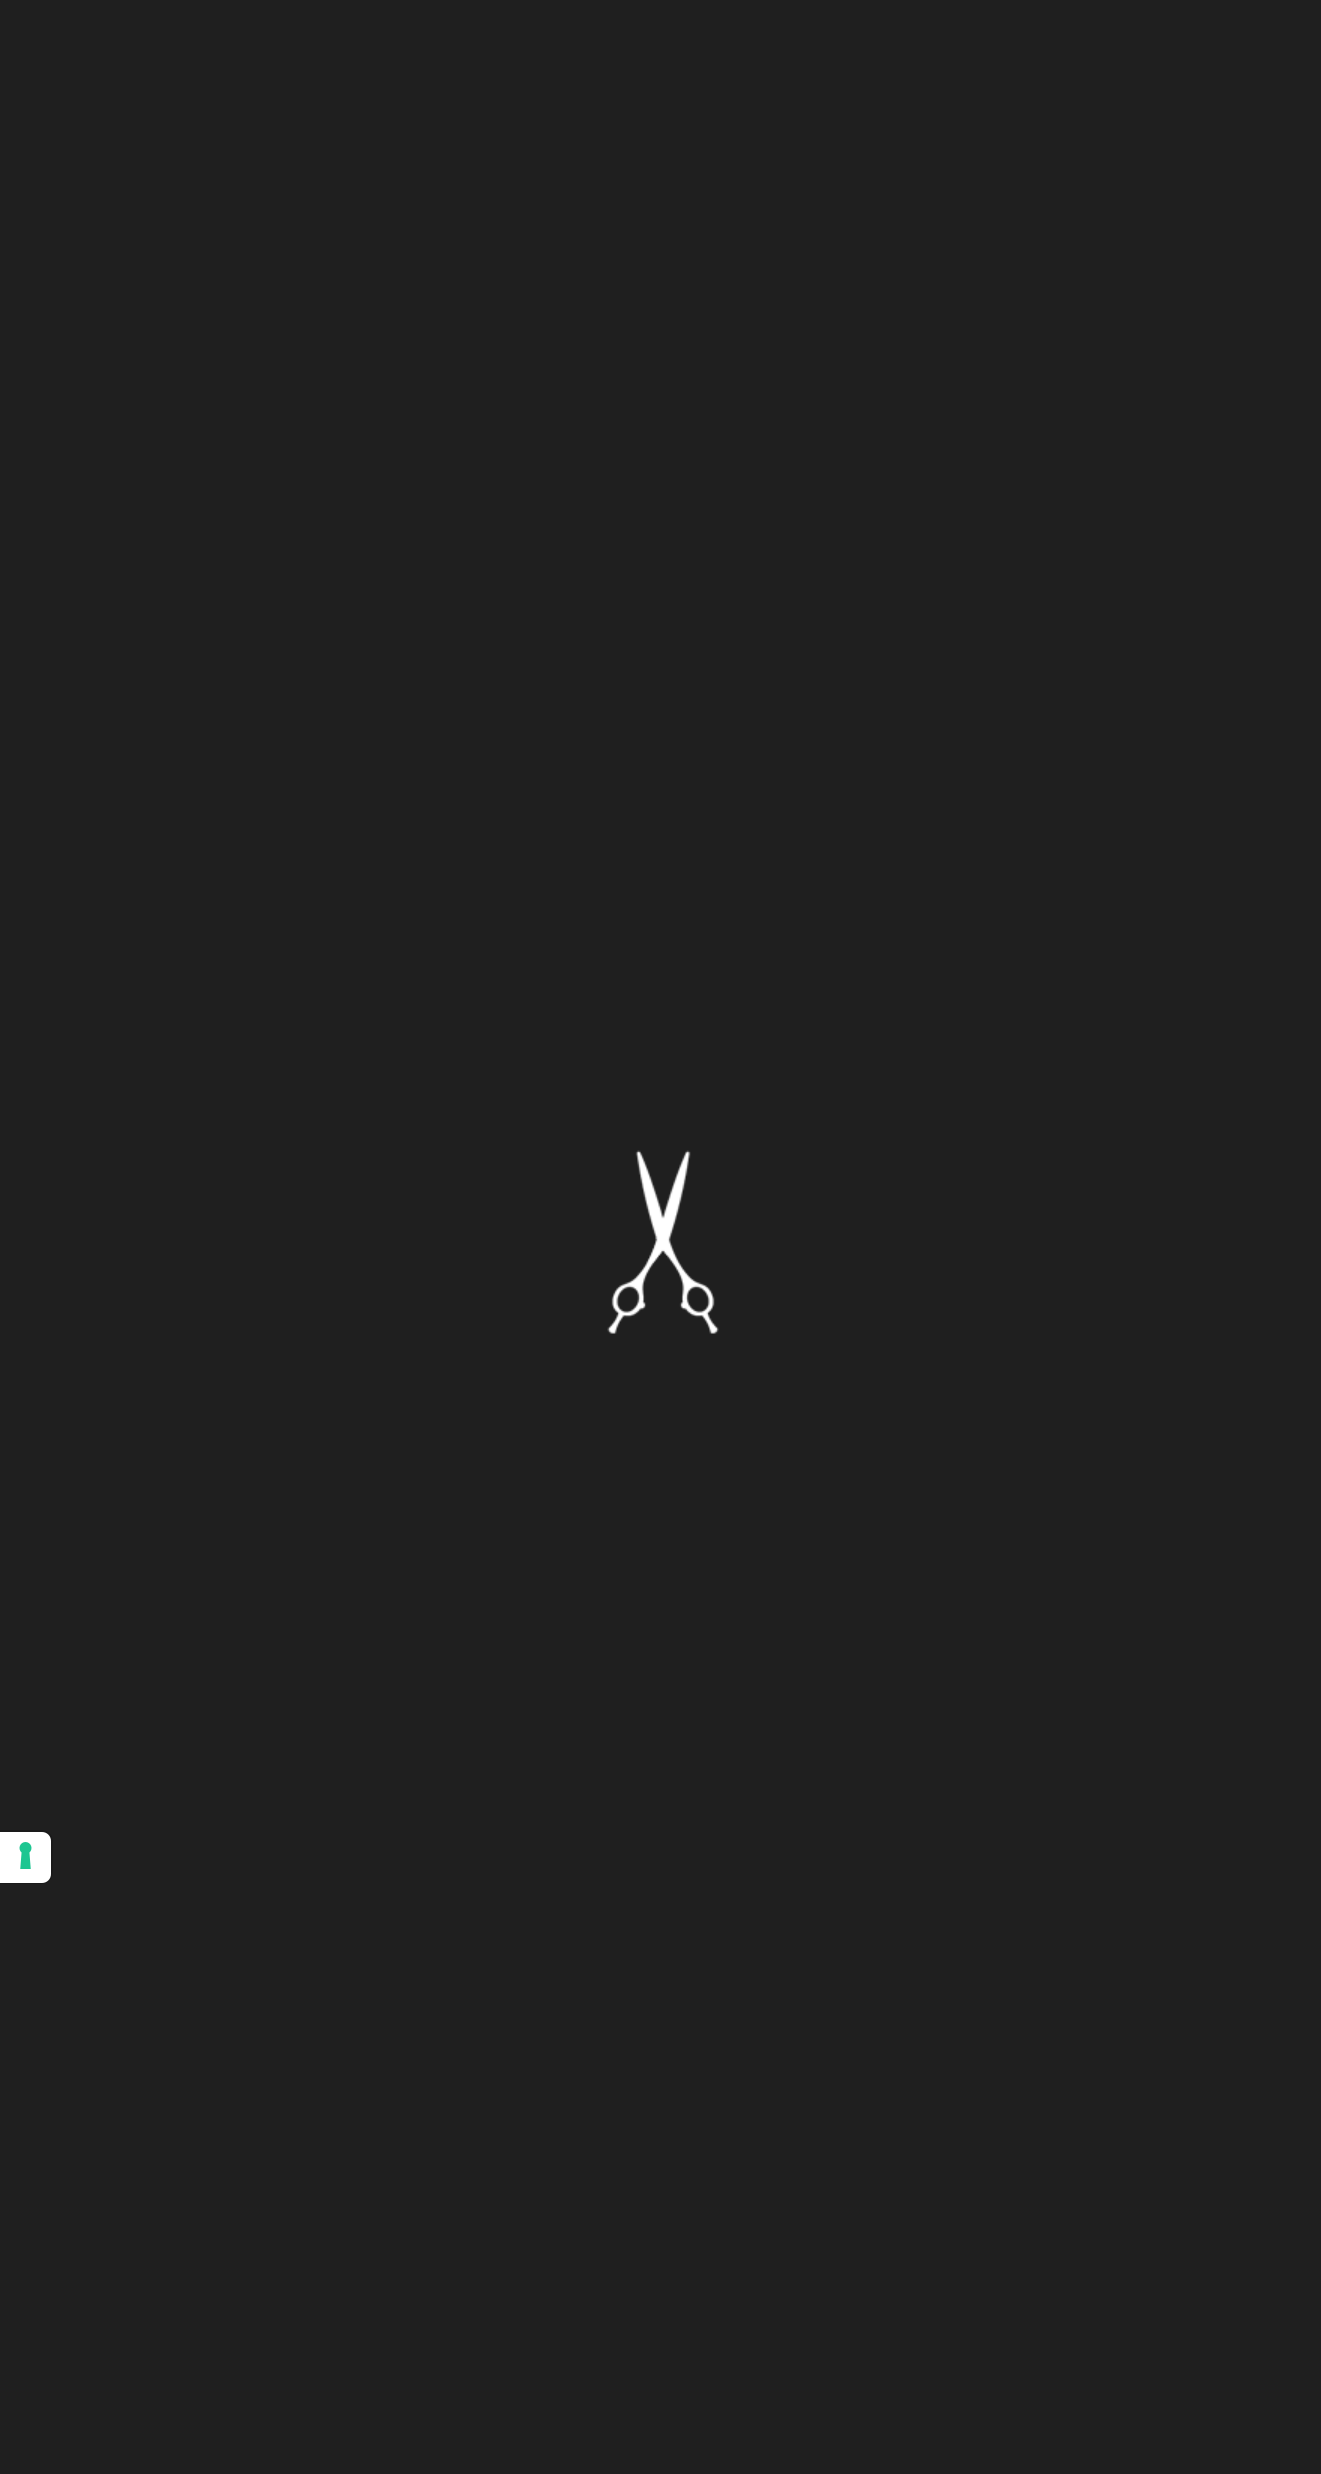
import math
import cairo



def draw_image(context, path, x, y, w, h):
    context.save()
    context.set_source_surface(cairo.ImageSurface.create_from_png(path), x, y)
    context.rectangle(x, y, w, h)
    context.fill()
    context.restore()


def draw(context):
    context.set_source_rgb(31 / 255, 31 / 255, 31 / 255)
    context.paint()
    draw_image(context, "images/1.png", 607, 1150, 112, 184)
    context.new_path()
    context.move_to(0, 1831)
    context.line_to(42, 1831)
    context.curve_to(47.5, 1831, 52, 1835.5, 52, 1841)
    context.line_to(52, 1873)
    context.curve_to(52, 1878.5, 47.5, 1883, 42, 1883)
    context.line_to(0, 1883)
    context.close_path()
    context.set_source_rgb(26 / 255, 26 / 255, 26 / 255)
    context.stroke()
    context.set_source_rgb(1, 1, 1)
    context.new_path()
    context.move_to(0, 1832)
    context.line_to(42, 1832)
    context.curve_to(47, 1832, 51, 1836, 51, 1841)
    context.line_to(51, 1874)
    context.curve_to(51, 1879, 47, 1883, 42, 1883)
    context.line_to(0, 1883)
    context.close_path()
    context.fill()
    draw_image(context, "images/2.png", 19, 1842, 13, 27)


surface = cairo.ImageSurface(cairo.Format.RGB24, 1321, 2474)
context = cairo.Context(surface)
options = cairo.FontOptions()
options.set_hint_metrics(cairo.HintMetrics.OFF)
options.set_hint_style(cairo.HintStyle.NONE)
context.set_font_options(options)
context.set_miter_limit(4)
draw(context)
surface.write_to_png("out.png")
